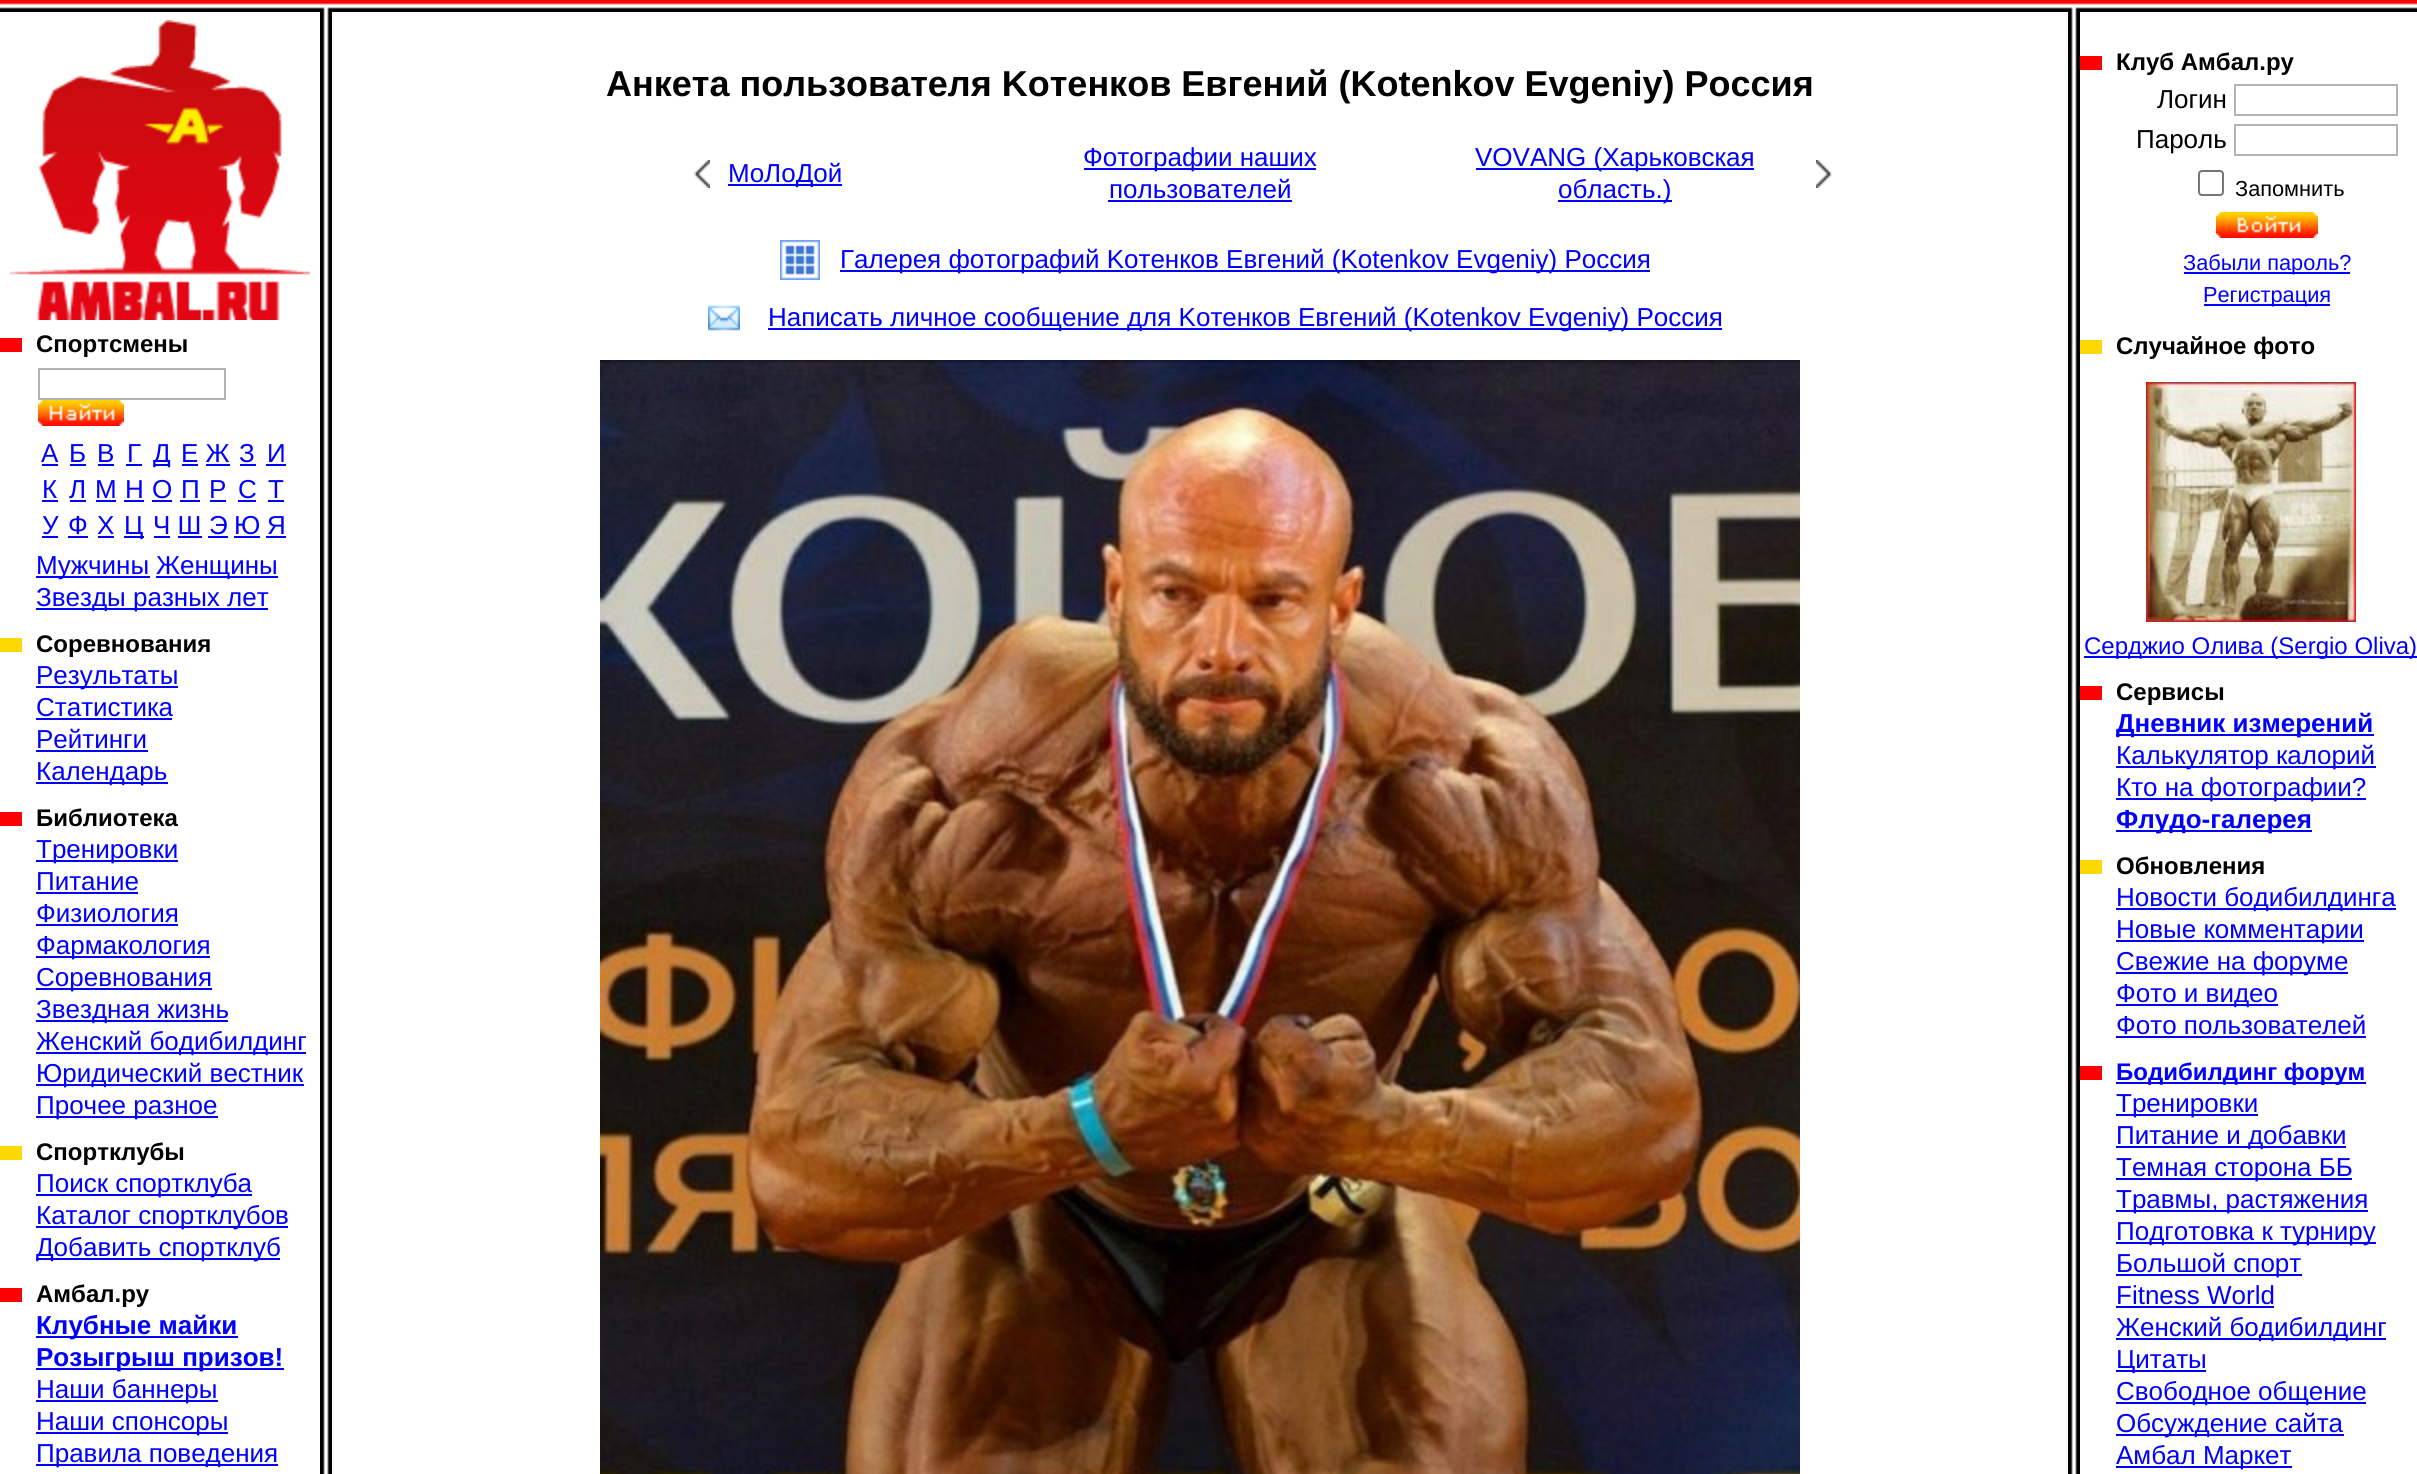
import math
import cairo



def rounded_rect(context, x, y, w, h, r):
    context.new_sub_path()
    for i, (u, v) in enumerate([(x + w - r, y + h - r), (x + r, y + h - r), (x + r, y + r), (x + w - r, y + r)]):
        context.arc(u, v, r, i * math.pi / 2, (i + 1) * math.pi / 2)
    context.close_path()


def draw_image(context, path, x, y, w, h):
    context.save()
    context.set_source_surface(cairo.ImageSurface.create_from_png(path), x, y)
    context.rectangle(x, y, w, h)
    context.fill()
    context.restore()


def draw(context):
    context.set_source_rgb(1, 1, 1)
    context.paint()
    draw_image(context, "images/1.png", 0, 0, 320, 12)
    draw_image(context, "images/2.png", 320, 0, 12, 12)
    draw_image(context, "images/3.png", 332, 0, 1736, 12)
    draw_image(context, "images/2.png", 2068, 0, 12, 12)
    draw_image(context, "images/4.png", 2080, 0, 337, 12)
    draw_image(context, "images/5.png", 320, 12, 12, 1462)
    draw_image(context, "images/6.png", 694, 160, 16, 28)
    context.set_source_rgb(0, 0, 1)
    context.rectangle(728, 184, 114, 2)
    context.fill()
    context.rectangle(1084, 168, 232, 2)
    context.fill()
    context.rectangle(1108, 200, 184, 2)
    context.fill()
    draw_image(context, "images/7.png", 1816, 160, 16, 28)
    context.rectangle(1476, 168, 278, 2)
    context.fill()
    context.rectangle(1558, 200, 114, 2)
    context.fill()
    draw_image(context, "images/8.png", 780, 240, 40, 40)
    context.rectangle(840, 270, 810, 2)
    context.fill()
    draw_image(context, "images/9.png", 708, 305, 32, 26)
    context.rectangle(768, 328, 954, 2)
    context.fill()
    draw_image(context, "images/10.png", 600, 360, 1200, 1114)
    draw_image(context, "images/5.png", 2068, 12, 12, 1462)
    context.set_source_rgb(254 / 255, 0, 1 / 255)
    context.rectangle(2080, 56, 22, 14)
    context.fill()
    context.rectangle(2235, 85, 162, 30)
    context.set_source_rgb(179 / 255, 179 / 255, 179 / 255)
    context.stroke()
    context.rectangle(2235, 125, 162, 30)
    context.stroke()
    rounded_rect(context, 2199, 171, 24, 24, 3)
    context.set_source_rgb(118 / 255, 118 / 255, 118 / 255)
    context.stroke()
    draw_image(context, "images/11.png", 2216, 212, 102, 26)
    context.set_source_rgb(0, 0, 1)
    context.rectangle(2184, 272, 166, 2)
    context.fill()
    context.rectangle(2204, 304, 126, 2)
    context.fill()
    context.set_source_rgb(253 / 255, 216 / 255, 1 / 255)
    context.rectangle(2080, 340, 22, 14)
    context.fill()
    draw_image(context, "images/12.png", 2146, 382, 210, 240)
    context.set_source_rgb(0, 0, 1)
    context.rectangle(2084, 656, 333, 2)
    context.fill()
    context.set_source_rgb(254 / 255, 0, 1 / 255)
    context.rectangle(2080, 686, 22, 14)
    context.fill()
    context.set_source_rgb(0, 0, 1)
    context.rectangle(2116, 734, 258, 2)
    context.fill()
    context.rectangle(2116, 766, 260, 2)
    context.fill()
    context.rectangle(2116, 798, 250, 2)
    context.fill()
    context.rectangle(2116, 830, 196, 2)
    context.fill()
    context.set_source_rgb(253 / 255, 216 / 255, 1 / 255)
    context.rectangle(2080, 860, 22, 14)
    context.fill()
    context.set_source_rgb(0, 0, 1)
    context.rectangle(2116, 908, 280, 2)
    context.fill()
    context.rectangle(2116, 940, 248, 2)
    context.fill()
    context.rectangle(2116, 972, 232, 2)
    context.fill()
    context.rectangle(2116, 1004, 162, 2)
    context.fill()
    context.rectangle(2116, 1036, 250, 2)
    context.fill()
    context.set_source_rgb(254 / 255, 0, 1 / 255)
    context.rectangle(2080, 1066, 22, 14)
    context.fill()
    context.set_source_rgb(0, 0, 1)
    context.rectangle(2116, 1082, 250, 2)
    context.fill()
    context.rectangle(2116, 1114, 142, 2)
    context.fill()
    context.rectangle(2116, 1146, 230, 2)
    context.fill()
    context.rectangle(2116, 1178, 236, 2)
    context.fill()
    context.rectangle(2116, 1210, 252, 2)
    context.fill()
    context.rectangle(2116, 1242, 260, 2)
    context.fill()
    context.rectangle(2116, 1274, 186, 2)
    context.fill()
    context.rectangle(2116, 1306, 158, 2)
    context.fill()
    context.rectangle(2116, 1338, 270, 2)
    context.fill()
    context.rectangle(2116, 1370, 90, 2)
    context.fill()
    context.rectangle(2116, 1402, 250, 2)
    context.fill()
    context.rectangle(2116, 1434, 228, 2)
    context.fill()
    context.rectangle(2116, 1466, 176, 2)
    context.fill()
    draw_image(context, "images/13.png", 10, 20, 300, 300)
    context.set_source_rgb(254 / 255, 0, 1 / 255)
    context.rectangle(0, 338, 22, 14)
    context.fill()
    context.rectangle(39, 369, 186, 30)
    context.set_source_rgb(179 / 255, 179 / 255, 179 / 255)
    context.stroke()
    draw_image(context, "images/14.png", 38, 400, 86, 26)
    context.set_source_rgb(0, 0, 1)
    context.rectangle(42, 464, 16, 2)
    context.fill()
    context.rectangle(70, 464, 16, 2)
    context.fill()
    context.rectangle(98, 464, 16, 2)
    context.fill()
    context.rectangle(126, 464, 16, 2)
    context.fill()
    context.rectangle(154, 464, 16, 2)
    context.fill()
    context.rectangle(182, 464, 16, 2)
    context.fill()
    context.rectangle(240, 464, 16, 2)
    context.fill()
    context.rectangle(266, 464, 20, 2)
    context.fill()
    context.rectangle(206, 464, 24, 2)
    context.fill()
    context.rectangle(42, 500, 16, 2)
    context.fill()
    context.rectangle(70, 500, 16, 2)
    context.fill()
    context.rectangle(96, 500, 20, 2)
    context.fill()
    context.rectangle(124, 500, 20, 2)
    context.fill()
    context.rectangle(152, 500, 20, 2)
    context.fill()
    context.rectangle(180, 500, 20, 2)
    context.fill()
    context.rectangle(210, 500, 16, 2)
    context.fill()
    context.rectangle(238, 500, 18, 2)
    context.fill()
    context.rectangle(268, 500, 16, 2)
    context.fill()
    context.rectangle(42, 536, 16, 2)
    context.fill()
    context.rectangle(68, 536, 20, 2)
    context.fill()
    context.rectangle(98, 536, 16, 2)
    context.fill()
    context.rectangle(124, 536, 20, 2)
    context.fill()
    context.rectangle(154, 536, 16, 2)
    context.fill()
    context.rectangle(208, 536, 20, 2)
    context.fill()
    context.rectangle(234, 536, 26, 2)
    context.fill()
    context.rectangle(266, 536, 20, 2)
    context.fill()
    context.rectangle(178, 536, 24, 2)
    context.fill()
    context.rectangle(36, 576, 114, 2)
    context.fill()
    context.rectangle(156, 576, 122, 2)
    context.fill()
    context.rectangle(36, 608, 232, 2)
    context.fill()
    context.set_source_rgb(253 / 255, 216 / 255, 1 / 255)
    context.rectangle(0, 638, 22, 14)
    context.fill()
    context.set_source_rgb(0, 0, 1)
    context.rectangle(36, 686, 142, 2)
    context.fill()
    context.rectangle(36, 718, 136, 2)
    context.fill()
    context.rectangle(36, 750, 112, 2)
    context.fill()
    context.rectangle(36, 782, 132, 2)
    context.fill()
    context.set_source_rgb(254 / 255, 0, 1 / 255)
    context.rectangle(0, 812, 22, 14)
    context.fill()
    context.set_source_rgb(0, 0, 1)
    context.rectangle(36, 860, 142, 2)
    context.fill()
    context.rectangle(36, 892, 102, 2)
    context.fill()
    context.rectangle(36, 924, 142, 2)
    context.fill()
    context.rectangle(36, 956, 174, 2)
    context.fill()
    context.rectangle(36, 988, 176, 2)
    context.fill()
    context.rectangle(36, 1020, 192, 2)
    context.fill()
    context.rectangle(36, 1052, 270, 2)
    context.fill()
    context.rectangle(36, 1084, 268, 2)
    context.fill()
    context.rectangle(36, 1116, 182, 2)
    context.fill()
    context.set_source_rgb(253 / 255, 216 / 255, 1 / 255)
    context.rectangle(0, 1146, 22, 14)
    context.fill()
    context.set_source_rgb(0, 0, 1)
    context.rectangle(36, 1194, 216, 2)
    context.fill()
    context.rectangle(36, 1226, 252, 2)
    context.fill()
    context.rectangle(36, 1258, 244, 2)
    context.fill()
    context.set_source_rgb(254 / 255, 0, 1 / 255)
    context.rectangle(0, 1288, 22, 14)
    context.fill()
    context.set_source_rgb(0, 0, 1)
    context.rectangle(36, 1336, 202, 2)
    context.fill()
    context.rectangle(36, 1368, 248, 2)
    context.fill()
    context.rectangle(36, 1400, 182, 2)
    context.fill()
    context.rectangle(36, 1432, 192, 2)
    context.fill()
    context.rectangle(36, 1464, 242, 2)
    context.fill()
    context.select_font_face("Liberation Sans", cairo.FontSlant.NORMAL, cairo.FontWeight.BOLD)
    context.set_font_size(36)
    context.set_source_rgb(0, 0, 0)
    context.move_to(606, 96)
    context.show_text("Анкета пользователя Koтенков Евгений (Kotenkov Evgeniy) Россия")
    context.select_font_face("Liberation Sans")
    context.set_font_size(26)
    context.set_source_rgb(0, 0, 1)
    context.move_to(728, 182)
    context.show_text("МоЛоДой")
    context.move_to(1083, 166)
    context.show_text("Фотографии наших")
    context.move_to(1109, 198)
    context.show_text("пользователей")
    context.move_to(1475, 166)
    context.show_text("VOVANG (Харьковская")
    context.move_to(1558, 198)
    context.show_text("область.)")
    context.move_to(840, 268)
    context.show_text("Галерея фотографий Koтенков Евгений (Kotenkov Evgeniy) Россия")
    context.move_to(768, 326)
    context.show_text("Написать личное сообщение для Koтенков Евгений (Kotenkov Evgeniy) Россия")
    context.select_font_face("Liberation Sans", cairo.FontSlant.NORMAL, cairo.FontWeight.BOLD)
    context.set_font_size(24)
    context.set_source_rgb(0, 0, 0)
    context.move_to(2116, 70)
    context.show_text("Клуб Амбал.ру")
    context.select_font_face("Liberation Sans")
    context.set_font_size(26)
    context.move_to(2157, 108)
    context.show_text("Логин")
    context.move_to(2136, 148)
    context.show_text("Пароль")
    context.set_font_size(21.75)
    context.move_to(2235, 196)
    context.show_text("Запомнить")
    context.set_source_rgb(0, 0, 1)
    context.move_to(2183, 270)
    context.show_text("Забыли пароль?")
    context.move_to(2203, 302)
    context.show_text("Регистрация")
    context.select_font_face("Liberation Sans", cairo.FontSlant.NORMAL, cairo.FontWeight.BOLD)
    context.set_font_size(24)
    context.set_source_rgb(0, 0, 0)
    context.move_to(2116, 354)
    context.show_text("Случайное фото")
    context.select_font_face("Liberation Sans")
    context.set_source_rgb(0, 0, 1)
    context.move_to(2084, 654)
    context.show_text("Серджио Олива (Sergio Oliva)")
    context.select_font_face("Liberation Sans", cairo.FontSlant.NORMAL, cairo.FontWeight.BOLD)
    context.set_source_rgb(0, 0, 0)
    context.move_to(2116, 700)
    context.show_text("Сервисы")
    context.set_font_size(26)
    context.set_source_rgb(0, 0, 1)
    context.move_to(2116, 732)
    context.show_text("Дневник измерений")
    context.select_font_face("Liberation Sans")
    context.move_to(2116, 764)
    context.show_text("Калькулятор калорий")
    context.move_to(2116, 796)
    context.show_text("Кто на фотографии?")
    context.select_font_face("Liberation Sans", cairo.FontSlant.NORMAL, cairo.FontWeight.BOLD)
    context.move_to(2116, 828)
    context.show_text("Флудо-галерея")
    context.set_font_size(24)
    context.set_source_rgb(0, 0, 0)
    context.move_to(2116, 874)
    context.show_text("Обновления")
    context.select_font_face("Liberation Sans")
    context.set_font_size(26)
    context.set_source_rgb(0, 0, 1)
    context.move_to(2116, 906)
    context.show_text("Новости бодибилдинга")
    context.move_to(2116, 938)
    context.show_text("Новые комментарии")
    context.move_to(2116, 970)
    context.show_text("Свежие на форуме")
    context.move_to(2116, 1002)
    context.show_text("Фото и видео")
    context.move_to(2116, 1034)
    context.show_text("Фото пользователей")
    context.select_font_face("Liberation Sans", cairo.FontSlant.NORMAL, cairo.FontWeight.BOLD)
    context.set_font_size(24)
    context.move_to(2116, 1080)
    context.show_text("Бодибилдинг форум")
    context.select_font_face("Liberation Sans")
    context.set_font_size(26)
    context.move_to(2116, 1112)
    context.show_text("Тренировки")
    context.move_to(2116, 1144)
    context.show_text("Питание и добавки")
    context.move_to(2116, 1176)
    context.show_text("Темная сторона ББ")
    context.move_to(2116, 1208)
    context.show_text("Травмы, растяжения")
    context.move_to(2116, 1240)
    context.show_text("Подготовка к турниру")
    context.move_to(2116, 1272)
    context.show_text("Большой спорт")
    context.move_to(2116, 1304)
    context.show_text("Fitness World")
    context.move_to(2116, 1336)
    context.show_text("Женский бодибилдинг")
    context.move_to(2116, 1368)
    context.show_text("Цитаты")
    context.move_to(2116, 1400)
    context.show_text("Свободное общение")
    context.move_to(2116, 1432)
    context.show_text("Обсуждение сайта")
    context.move_to(2116, 1464)
    context.show_text("Амбал Маркет")
    context.select_font_face("Liberation Sans", cairo.FontSlant.NORMAL, cairo.FontWeight.BOLD)
    context.set_font_size(24)
    context.set_source_rgb(0, 0, 0)
    context.move_to(36, 352)
    context.show_text("Спортсмены")
    context.select_font_face("Liberation Sans")
    context.set_font_size(26)
    context.set_source_rgb(0, 0, 1)
    context.move_to(41, 462)
    context.show_text("А")
    context.move_to(69, 462)
    context.show_text("Б")
    context.move_to(97, 462)
    context.show_text("В")
    context.move_to(127, 462)
    context.show_text("Г")
    context.move_to(153, 462)
    context.show_text("Д")
    context.move_to(181, 462)
    context.show_text("Е Ж")
    context.move_to(239, 462)
    context.show_text("З")
    context.move_to(267, 462)
    context.show_text("И")
    context.move_to(42, 498)
    context.show_text("К")
    context.move_to(69, 498)
    context.show_text("Л")
    context.move_to(95, 498)
    context.show_text("М")
    context.move_to(125, 498)
    context.show_text("Н")
    context.move_to(152, 498)
    context.show_text("О")
    context.move_to(181, 498)
    context.show_text("П")
    context.move_to(209, 498)
    context.show_text("Р")
    context.move_to(238, 498)
    context.show_text("С")
    context.move_to(268, 498)
    context.show_text("Т")
    context.move_to(42, 534)
    context.show_text("У")
    context.move_to(68, 534)
    context.show_text("Ф")
    context.move_to(97, 534)
    context.show_text("Х")
    context.move_to(124, 534)
    context.show_text("Ц")
    context.move_to(153, 534)
    context.show_text("Ч Ш")
    context.move_to(209, 534)
    context.show_text("Э")
    context.move_to(234, 534)
    context.show_text("Ю")
    context.move_to(267, 534)
    context.show_text("Я")
    context.move_to(36, 574)
    context.show_text("Мужчины")
    context.move_to(156, 574)
    context.show_text("Женщины")
    context.move_to(36, 606)
    context.show_text("Звезды разных лет")
    context.select_font_face("Liberation Sans", cairo.FontSlant.NORMAL, cairo.FontWeight.BOLD)
    context.set_font_size(24)
    context.set_source_rgb(0, 0, 0)
    context.move_to(36, 652)
    context.show_text("Соревнования")
    context.select_font_face("Liberation Sans")
    context.set_font_size(26)
    context.set_source_rgb(0, 0, 1)
    context.move_to(36, 684)
    context.show_text("Результаты")
    context.move_to(36, 716)
    context.show_text("Статистика")
    context.move_to(36, 748)
    context.show_text("Рейтинги")
    context.move_to(36, 780)
    context.show_text("Календарь")
    context.select_font_face("Liberation Sans", cairo.FontSlant.NORMAL, cairo.FontWeight.BOLD)
    context.set_font_size(24)
    context.set_source_rgb(0, 0, 0)
    context.move_to(36, 826)
    context.show_text("Библиотека")
    context.select_font_face("Liberation Sans")
    context.set_font_size(26)
    context.set_source_rgb(0, 0, 1)
    context.move_to(36, 858)
    context.show_text("Тренировки")
    context.move_to(36, 890)
    context.show_text("Питание")
    context.move_to(36, 922)
    context.show_text("Физиология")
    context.move_to(36, 954)
    context.show_text("Фармакология")
    context.move_to(36, 986)
    context.show_text("Соревнования")
    context.move_to(36, 1018)
    context.show_text("Звездная жизнь")
    context.move_to(36, 1050)
    context.show_text("Женский бодибилдинг")
    context.move_to(36, 1082)
    context.show_text("Юридический вестник")
    context.move_to(36, 1114)
    context.show_text("Прочее разное")
    context.select_font_face("Liberation Sans", cairo.FontSlant.NORMAL, cairo.FontWeight.BOLD)
    context.set_font_size(24)
    context.set_source_rgb(0, 0, 0)
    context.move_to(36, 1160)
    context.show_text("Спортклубы")
    context.select_font_face("Liberation Sans")
    context.set_font_size(26)
    context.set_source_rgb(0, 0, 1)
    context.move_to(36, 1192)
    context.show_text("Поиск спортклуба")
    context.move_to(36, 1224)
    context.show_text("Каталог спортклубов")
    context.move_to(36, 1256)
    context.show_text("Добавить спортклуб")
    context.select_font_face("Liberation Sans", cairo.FontSlant.NORMAL, cairo.FontWeight.BOLD)
    context.set_font_size(24)
    context.set_source_rgb(0, 0, 0)
    context.move_to(36, 1302)
    context.show_text("Амбал.ру")
    context.set_font_size(26)
    context.set_source_rgb(0, 0, 1)
    context.move_to(36, 1334)
    context.show_text("Клубные майки")
    context.move_to(36, 1366)
    context.show_text("Розыгрыш призов!")
    context.select_font_face("Liberation Sans")
    context.move_to(36, 1398)
    context.show_text("Наши баннеры")
    context.move_to(36, 1430)
    context.show_text("Наши спонсоры")
    context.move_to(36, 1462)
    context.show_text("Правила поведения")


surface = cairo.ImageSurface(cairo.Format.RGB24, 2417, 1474)
context = cairo.Context(surface)
options = cairo.FontOptions()
options.set_hint_metrics(cairo.HintMetrics.OFF)
options.set_hint_style(cairo.HintStyle.NONE)
context.set_font_options(options)
context.set_miter_limit(4)
draw(context)
surface.write_to_png("out.png")
